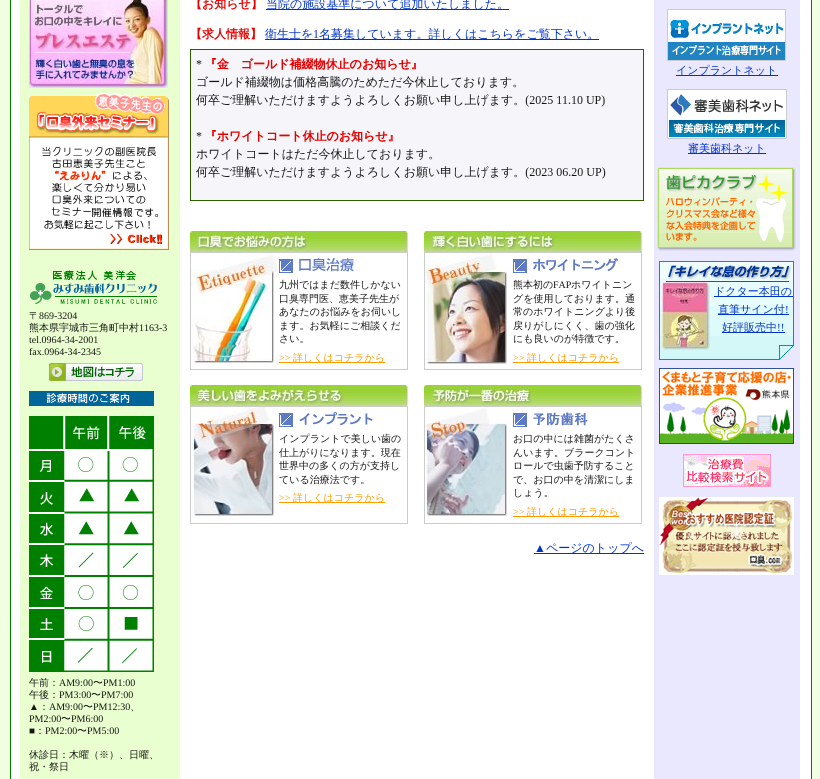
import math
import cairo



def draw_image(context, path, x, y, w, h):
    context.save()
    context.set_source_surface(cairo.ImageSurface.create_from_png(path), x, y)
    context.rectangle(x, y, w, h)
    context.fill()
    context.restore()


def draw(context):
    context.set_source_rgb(240 / 255, 1, 225 / 255)
    context.paint()
    context.set_source_rgb(1, 1, 1)
    context.rectangle(10.5, -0.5, 801, 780)
    context.fill_preserve()
    context.set_source_rgb(0, 128 / 255, 0)
    context.set_line_width(1)
    context.stroke()
    context.set_source_rgb(0, 51 / 255, 204 / 255)
    context.rectangle(266, 9, 243, 1)
    context.fill()
    context.rectangle(265, 39, 334, 1)
    context.fill()
    context.set_source_rgb(245 / 255, 245 / 255, 250 / 255)
    context.rectangle(190.5, 49.5, 453, 151)
    context.fill_preserve()
    context.set_source_rgb(42 / 255, 95 / 255, 0)
    context.stroke()
    draw_image(context, "images/1.png", 196, 57, 410, 122)
    draw_image(context, "images/2.png", 190, 231, 218, 21)
    draw_image(context, "images/3.png", 424, 231, 218, 21)
    context.rectangle(190.5, 252.5, 217, 117)
    context.set_source_rgb(204 / 255, 204 / 255, 204 / 255)
    context.stroke()
    draw_image(context, "images/4.png", 191, 253, 87, 110)
    draw_image(context, "images/5.png", 279, 258, 75, 15)
    context.set_source_rgb(1, 153 / 255, 0)
    context.rectangle(279, 362, 106, 1)
    context.fill()
    context.rectangle(424.5, 252.5, 217, 117)
    context.set_source_rgb(204 / 255, 204 / 255, 204 / 255)
    context.stroke()
    draw_image(context, "images/6.png", 425, 253, 87, 111)
    draw_image(context, "images/7.png", 513, 258, 105, 15)
    context.set_source_rgb(1, 153 / 255, 0)
    context.rectangle(513, 362, 106, 1)
    context.fill()
    draw_image(context, "images/8.png", 190, 385, 218, 21)
    draw_image(context, "images/9.png", 424, 385, 218, 21)
    context.rectangle(190.5, 406.5, 217, 117)
    context.set_source_rgb(204 / 255, 204 / 255, 204 / 255)
    context.stroke()
    draw_image(context, "images/10.png", 191, 407, 87, 109)
    draw_image(context, "images/11.png", 279, 412, 94, 15)
    context.set_source_rgb(1, 153 / 255, 0)
    context.rectangle(279, 502, 106, 1)
    context.fill()
    context.rectangle(424.5, 406.5, 217, 117)
    context.set_source_rgb(204 / 255, 204 / 255, 204 / 255)
    context.stroke()
    draw_image(context, "images/12.png", 425, 408, 88, 108)
    draw_image(context, "images/13.png", 513, 412, 75, 15)
    context.set_source_rgb(1, 153 / 255, 0)
    context.rectangle(513, 516, 106, 1)
    context.fill()
    context.set_source_rgb(0, 51 / 255, 204 / 255)
    context.rectangle(534, 553, 110, 1)
    context.fill()
    context.set_source_rgb(234 / 255, 232 / 255, 1)
    context.rectangle(654, 0, 146, 779)
    context.fill()
    draw_image(context, "images/14.png", 667, 9, 119, 52)
    context.set_source_rgb(0, 51 / 255, 204 / 255)
    context.rectangle(676, 75, 102, 1)
    context.fill()
    draw_image(context, "images/15.png", 667, 89, 120, 50)
    context.rectangle(688, 153, 78, 1)
    context.fill()
    draw_image(context, "images/16.png", 657, 167, 139, 84)
    draw_image(context, "images/17.png", 659, 261, 135, 99)
    draw_image(context, "images/18.png", 666, 265, 126, 17)
    draw_image(context, "images/19.png", 662, 282, 48, 68)
    context.rectangle(714, 296, 79, 1)
    context.fill()
    context.rectangle(718, 314, 71, 1)
    context.fill()
    context.rectangle(722, 332, 63, 1)
    context.fill()
    draw_image(context, "images/20.png", 659, 368, 135, 76)
    draw_image(context, "images/21.png", 683, 454, 88, 33)
    draw_image(context, "images/22.png", 659, 497, 135, 78)
    context.set_source_rgb(234 / 255, 1, 207 / 255)
    context.rectangle(20, 0, 160, 779)
    context.fill()
    draw_image(context, "images/23.png", 29, 0, 139, 88)
    draw_image(context, "images/24.png", 29, 93, 140, 157)
    draw_image(context, "images/25.png", 30, 270, 127, 34)
    draw_image(context, "images/26.png", 49, 363, 94, 18)
    draw_image(context, "images/27.png", 29, 391, 125, 15)
    draw_image(context, "images/28.png", 29, 416, 125, 256)
    context.select_font_face("WenQuanYi Zen Hei", cairo.FontSlant.NORMAL, cairo.FontWeight.BOLD)
    context.set_font_size(12)
    context.set_source_rgb(232 / 255, 0, 0)
    context.move_to(190, 8)
    context.show_text("【お知らせ】")
    context.select_font_face("WenQuanYi Zen Hei Medium")
    context.set_source_rgb(0, 51 / 255, 204 / 255)
    context.move_to(266, 8)
    context.show_text("当院の施設基準について追加いたしました。")
    context.select_font_face("WenQuanYi Zen Hei", cairo.FontSlant.NORMAL, cairo.FontWeight.BOLD)
    context.set_source_rgb(232 / 255, 0, 0)
    context.move_to(190, 38)
    context.show_text("【求人情報】")
    context.select_font_face("WenQuanYi Zen Hei Medium")
    context.set_source_rgb(0, 51 / 255, 204 / 255)
    context.move_to(265, 38)
    context.show_text("衛生士を")
    context.select_font_face("Liberation Serif")
    context.move_to(313, 38)
    context.show_text("1")
    context.select_font_face("WenQuanYi Zen Hei Medium")
    context.move_to(319, 38)
    context.show_text("名募集しています。詳しくはこちらをご覧下さい。")
    context.set_font_size(10)
    context.set_source_rgb(21 / 255, 21 / 255, 21 / 255)
    context.move_to(279, 288)
    context.show_text("九州ではまだ数件しかない")
    context.move_to(279, 302)
    context.show_text("口臭専門医、恵美子先生が")
    context.move_to(279, 315)
    context.show_text("あなたのお悩みをお伺いし")
    context.move_to(279, 329)
    context.show_text("ます。お気軽にご相談くだ")
    context.move_to(279, 342)
    context.show_text("さい。")
    context.select_font_face("Liberation Serif")
    context.set_source_rgb(1, 153 / 255, 0)
    context.move_to(279, 361)
    context.show_text(">>")
    context.select_font_face("WenQuanYi Zen Hei Medium")
    context.move_to(293, 361)
    context.show_text("詳しくはコチラから")
    context.set_source_rgb(21 / 255, 21 / 255, 21 / 255)
    context.move_to(513, 288)
    context.show_text("熊本初の")
    context.select_font_face("Liberation Serif")
    context.move_to(553, 288)
    context.show_text("FAP")
    context.select_font_face("WenQuanYi Zen Hei Medium")
    context.move_to(571, 288)
    context.show_text("ホワイトニン")
    context.move_to(513, 302)
    context.show_text("グを使用しております。通")
    context.move_to(513, 315)
    context.show_text("常のホワイトニングより後")
    context.move_to(513, 329)
    context.show_text("戻りがしにくく、歯の強化")
    context.move_to(513, 342)
    context.show_text("にも良いのが特徴です。")
    context.select_font_face("Liberation Serif")
    context.set_source_rgb(1, 153 / 255, 0)
    context.move_to(513, 361)
    context.show_text(">>")
    context.select_font_face("WenQuanYi Zen Hei Medium")
    context.move_to(527, 361)
    context.show_text("詳しくはコチラから")
    context.set_source_rgb(21 / 255, 21 / 255, 21 / 255)
    context.move_to(279, 442)
    context.show_text("インプラントで美しい歯の")
    context.move_to(279, 456)
    context.show_text("仕上がりになります。現在")
    context.move_to(279, 469)
    context.show_text("世界中の多くの方が支持し")
    context.move_to(279, 483)
    context.show_text("ている治療法です。")
    context.select_font_face("Liberation Serif")
    context.set_source_rgb(1, 153 / 255, 0)
    context.move_to(279, 501)
    context.show_text(">>")
    context.select_font_face("WenQuanYi Zen Hei Medium")
    context.move_to(293, 501)
    context.show_text("詳しくはコチラから")
    context.set_source_rgb(21 / 255, 21 / 255, 21 / 255)
    context.move_to(513, 442)
    context.show_text("お口の中には雑菌がたくさ")
    context.move_to(513, 456)
    context.show_text("んいます。ブラークコント")
    context.move_to(513, 469)
    context.show_text("ロールで虫歯予防すること")
    context.move_to(513, 483)
    context.show_text("で、お口の中を清潔にしま")
    context.move_to(513, 496)
    context.show_text("しょう。")
    context.select_font_face("Liberation Serif")
    context.set_source_rgb(1, 153 / 255, 0)
    context.move_to(513, 515)
    context.show_text(">>")
    context.select_font_face("WenQuanYi Zen Hei Medium")
    context.move_to(527, 515)
    context.show_text("詳しくはコチラから")
    context.select_font_face("Liberation Serif")
    context.set_font_size(12)
    context.set_source_rgb(0, 51 / 255, 204 / 255)
    context.move_to(534, 552)
    context.show_text("▲")
    context.select_font_face("WenQuanYi Zen Hei Medium")
    context.move_to(546, 552)
    context.show_text("ページのトップへ")
    context.set_font_size(11)
    context.move_to(676, 74)
    context.show_text("インプラントネット")
    context.move_to(688, 152)
    context.show_text("審美歯科ネット")
    context.move_to(714, 295)
    context.show_text("ドクター本田の")
    context.move_to(718, 313)
    context.show_text("直筆サイン付")
    context.select_font_face("Liberation Serif")
    context.move_to(785, 313)
    context.show_text("!")
    context.select_font_face("WenQuanYi Zen Hei Medium")
    context.move_to(722, 331)
    context.show_text("好評販売中")
    context.select_font_face("Liberation Serif")
    context.move_to(777, 331)
    context.show_text("!!")
    context.select_font_face("WenQuanYi Zen Hei Medium")
    context.set_font_size(10)
    context.set_source_rgb(21 / 255, 21 / 255, 21 / 255)
    context.move_to(29, 319)
    context.show_text("〒")
    context.select_font_face("Liberation Serif")
    context.move_to(39, 319)
    context.show_text("869-3204")
    context.select_font_face("WenQuanYi Zen Hei Medium")
    context.move_to(29, 331)
    context.show_text("熊本県宇城市三角町中村")
    context.select_font_face("Liberation Serif")
    context.move_to(139, 331)
    context.show_text("1163-3")
    context.move_to(29, 343)
    context.show_text("tel.0964-34-2001")
    context.move_to(29, 355)
    context.show_text("fax.0964-34-2345")
    context.select_font_face("WenQuanYi Zen Hei Medium")
    context.move_to(29, 686)
    context.show_text("午前：")
    context.select_font_face("Liberation Serif")
    context.move_to(59, 686)
    context.show_text("AM9:00")
    context.select_font_face("WenQuanYi Zen Hei Medium")
    context.move_to(93, 686)
    context.show_text("〜")
    context.select_font_face("Liberation Serif")
    context.move_to(103, 686)
    context.show_text("PM1:00")
    context.select_font_face("WenQuanYi Zen Hei Medium")
    context.move_to(29, 698)
    context.show_text("午後：")
    context.select_font_face("Liberation Serif")
    context.move_to(59, 698)
    context.show_text("PM3:00")
    context.select_font_face("WenQuanYi Zen Hei Medium")
    context.move_to(91, 698)
    context.show_text("〜")
    context.select_font_face("Liberation Serif")
    context.move_to(101, 698)
    context.show_text("PM7:00")
    context.move_to(29, 710)
    context.show_text("▲")
    context.select_font_face("WenQuanYi Zen Hei Medium")
    context.move_to(39, 710)
    context.show_text("：")
    context.select_font_face("Liberation Serif")
    context.move_to(49, 710)
    context.show_text("AM9:00")
    context.select_font_face("WenQuanYi Zen Hei Medium")
    context.move_to(83, 710)
    context.show_text("〜")
    context.select_font_face("Liberation Serif")
    context.move_to(93, 710)
    context.show_text("PM12:30")
    context.select_font_face("WenQuanYi Zen Hei Medium")
    context.move_to(130, 710)
    context.show_text("、")
    context.select_font_face("Liberation Serif")
    context.move_to(29, 722)
    context.show_text("PM2:00")
    context.select_font_face("WenQuanYi Zen Hei Medium")
    context.move_to(61, 722)
    context.show_text("〜")
    context.select_font_face("Liberation Serif")
    context.move_to(71, 722)
    context.show_text("PM6:00")
    context.move_to(29, 734)
    context.show_text("■")
    context.select_font_face("WenQuanYi Zen Hei Medium")
    context.move_to(35, 734)
    context.show_text("：")
    context.select_font_face("Liberation Serif")
    context.move_to(45, 734)
    context.show_text("PM2:00")
    context.select_font_face("WenQuanYi Zen Hei Medium")
    context.move_to(77, 734)
    context.show_text("〜")
    context.select_font_face("Liberation Serif")
    context.move_to(87, 734)
    context.show_text("PM5:00")
    context.select_font_face("WenQuanYi Zen Hei Medium")
    context.move_to(29, 758)
    context.show_text("休診日：木曜（※）、日曜、")
    context.move_to(29, 770)
    context.show_text("祝・祭日")


surface = cairo.ImageSurface(cairo.Format.RGB24, 820, 779)
context = cairo.Context(surface)
options = cairo.FontOptions()
options.set_hint_metrics(cairo.HintMetrics.OFF)
options.set_hint_style(cairo.HintStyle.NONE)
context.set_font_options(options)
context.set_miter_limit(4)
draw(context)
surface.write_to_png("out.png")
